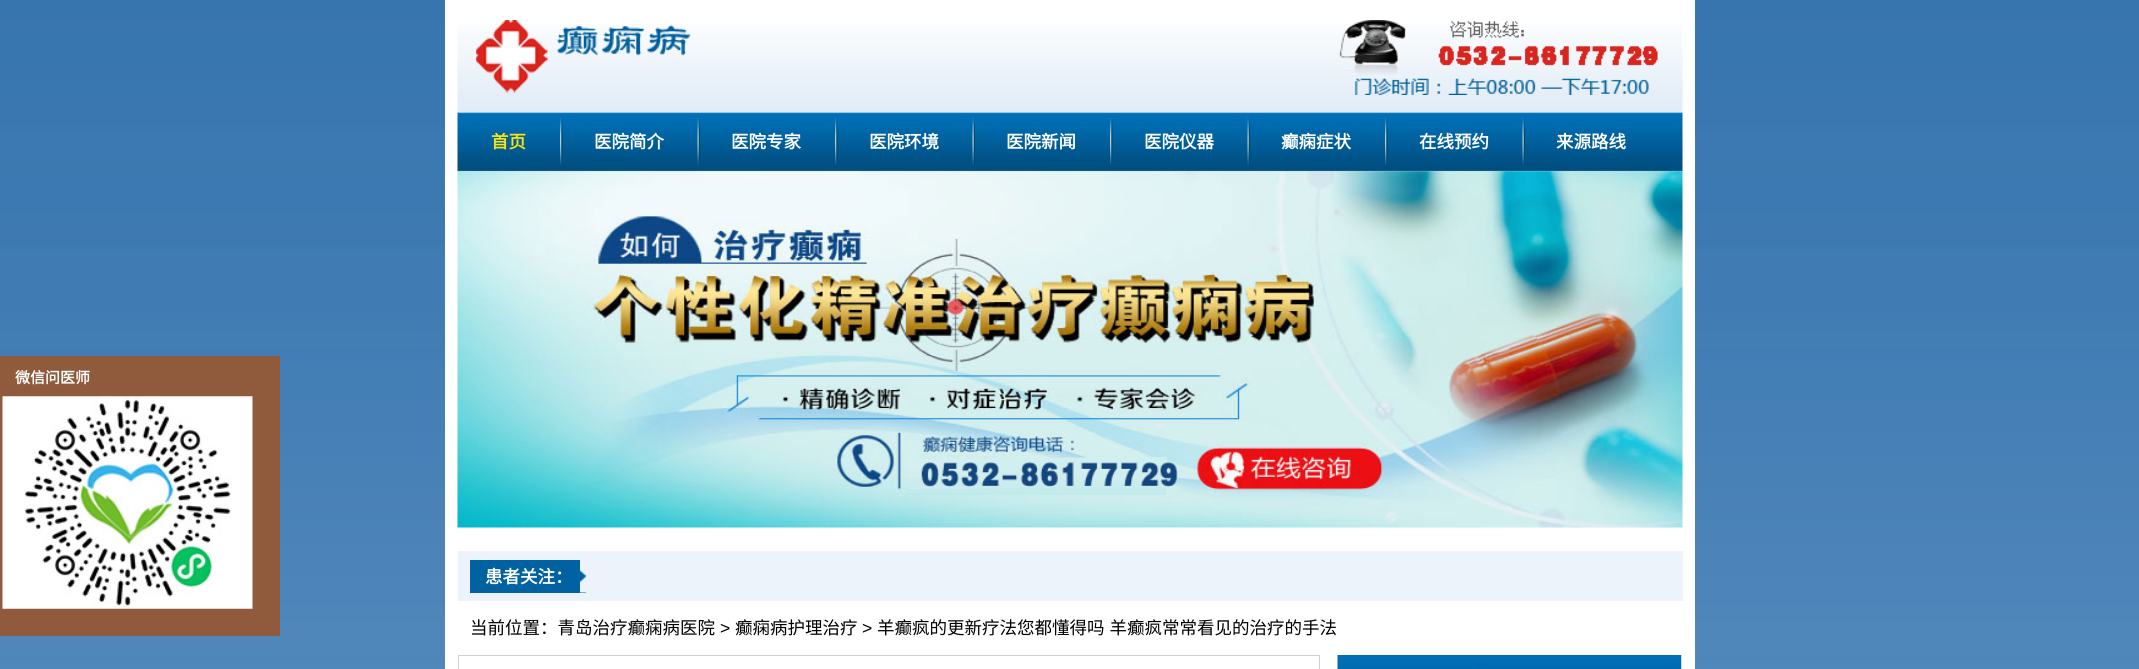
import math
import cairo



def draw_spaced(context, x, y, s, letter, word):
    context.move_to(x, y)
    for ch in s:
        context.show_text(ch)
        context.rel_move_to(letter + word * (ch == ' '), 0)


def draw_image(context, path, x, y, w, h):
    context.save()
    context.set_source_surface(cairo.ImageSurface.create_from_png(path), x, y)
    context.rectangle(x, y, w, h)
    context.fill()
    context.restore()


def draw(context):
    context.set_source_rgb(1, 1, 1)
    context.paint()
    draw_image(context, "images/1.png", 0, 0, 2139, 669)
    context.set_source_rgb(1, 1, 1)
    context.rectangle(445, 0, 1250, 669)
    context.fill()
    draw_image(context, "images/5.png", 457, 112, 1226, 60)
    draw_image(context, "images/2.png", 457, 24, 1226, 89)
    draw_image(context, "images/3.png", 476, 20, 215, 73)
    draw_image(context, "images/4.png", 1339, 20, 319, 75)
    draw_image(context, "images/6.png", 560, 117, 3, 49)
    draw_image(context, "images/7.png", 697, 117, 3, 49)
    draw_image(context, "images/8.png", 835, 117, 3, 49)
    draw_image(context, "images/9.png", 972, 117, 3, 49)
    draw_image(context, "images/8.png", 1110, 117, 3, 49)
    draw_image(context, "images/10.png", 1247, 117, 3, 49)
    draw_image(context, "images/8.png", 1385, 117, 3, 49)
    draw_image(context, "images/9.png", 1522, 117, 3, 49)
    context.set_source_rgb(144 / 255, 91 / 255, 60 / 255)
    context.rectangle(0, 356, 280, 280)
    context.fill()
    draw_image(context, "images/11.png", 2, 396, 251, 213)
    draw_image(context, "images/12.png", 457, 171, 1226, 357)
    context.set_source_rgb(236 / 255, 243 / 255, 250 / 255)
    context.rectangle(458, 551, 1225, 50)
    context.fill()
    context.set_source_rgb(0, 98 / 255, 160 / 255)
    context.rectangle(470, 560, 116, 33)
    context.fill()
    draw_image(context, "images/13.png", 580, 560, 7, 33)
    context.rectangle(458.5, 655.5, 861, 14)
    context.set_source_rgb(207 / 255, 207 / 255, 207 / 255)
    context.set_line_width(1)
    context.stroke()
    draw_image(context, "images/14.png", 1337, 655, 345, 14)
    draw_image(context, "images/15.png", 1472, 668, 2, 1)
    context.select_font_face("Noto Sans CJK SC", cairo.FontSlant.NORMAL, cairo.FontWeight.BOLD)
    context.set_font_size(17.5)
    context.set_source_rgb(1, 229 / 255, 9 / 255)
    context.move_to(491, 148)
    context.show_text("首页")
    context.set_source_rgb(1, 1, 1)
    context.move_to(594, 148)
    context.show_text("医院简介")
    context.move_to(731, 148)
    context.show_text("医院专家")
    context.move_to(869, 148)
    context.show_text("医院环境")
    context.move_to(1006, 148)
    context.show_text("医院新闻")
    context.move_to(1144, 148)
    context.show_text("医院仪器")
    context.move_to(1281, 148)
    context.show_text("癫痫症状")
    context.move_to(1419, 148)
    context.show_text("在线预约")
    context.move_to(1556, 148)
    context.show_text("来源路线")
    context.set_font_size(15)
    context.move_to(15, 383)
    context.show_text("微信问医师")
    context.set_font_size(17.5)
    context.move_to(485, 583)
    context.show_text("患者关注：")
    context.select_font_face("Noto Sans CJK SC")
    context.set_source_rgb(0, 0, 0)
    context.move_to(470, 634)
    context.show_text("当前位置：青岛治疗癫痫病医院")
    context.select_font_face("Liberation Sans")
    context.move_to(720, 634)
    context.show_text(">")
    context.select_font_face("Noto Sans CJK SC")
    context.move_to(735, 634)
    context.show_text("癫痫病护理治疗")
    context.select_font_face("Liberation Sans")
    context.move_to(862, 634)
    context.show_text(">")
    context.select_font_face("Noto Sans CJK SC")
    draw_spaced(context, 877, 634, "羊癫疯的更新疗法您都懂得吗 羊癫疯常常看见的治疗的手法", 0, 1)


surface = cairo.ImageSurface(cairo.Format.RGB24, 2139, 669)
context = cairo.Context(surface)
options = cairo.FontOptions()
options.set_hint_metrics(cairo.HintMetrics.OFF)
options.set_hint_style(cairo.HintStyle.NONE)
context.set_font_options(options)
context.set_miter_limit(4)
draw(context)
surface.write_to_png("out.png")
